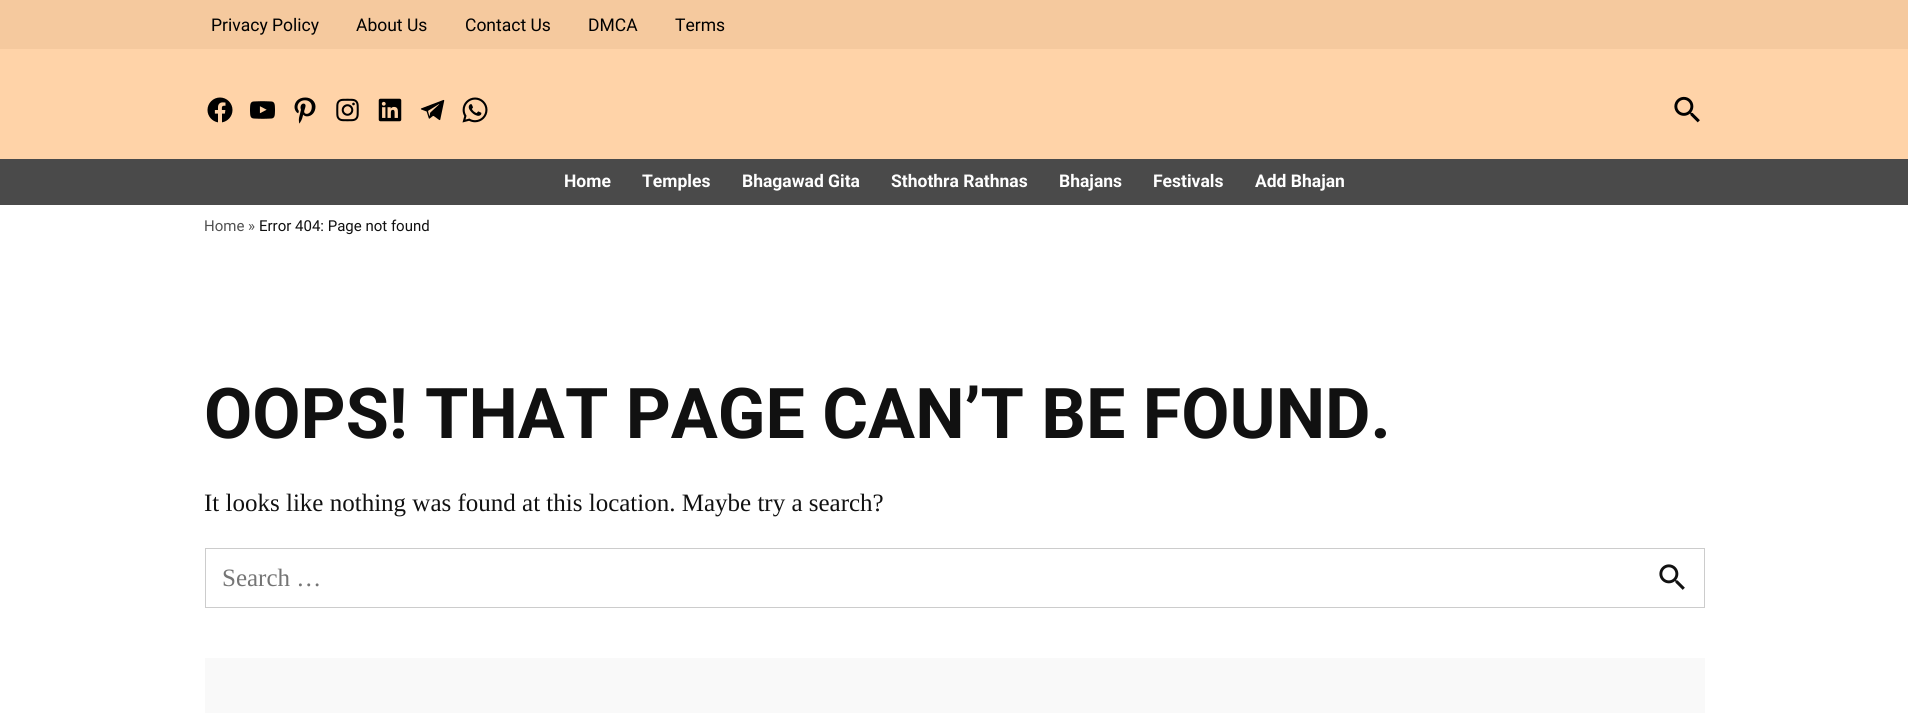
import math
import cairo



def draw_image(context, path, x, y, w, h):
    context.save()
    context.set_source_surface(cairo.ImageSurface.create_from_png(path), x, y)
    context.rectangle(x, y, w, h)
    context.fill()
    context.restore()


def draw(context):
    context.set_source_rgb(1, 1, 1)
    context.paint()
    context.set_source_rgb(245 / 255, 201 / 255, 158 / 255)
    context.rectangle(0, 0, 1908, 49)
    context.fill()
    context.set_source_rgb(1, 211 / 255, 168 / 255)
    context.rectangle(0, 49, 1908, 110)
    context.fill()
    draw_image(context, "images/1.png", 207, 97, 26, 26)
    draw_image(context, "images/2.png", 250, 101, 25, 18)
    draw_image(context, "images/3.png", 294, 97, 22, 27)
    draw_image(context, "images/4.png", 336, 98, 23, 24)
    draw_image(context, "images/5.png", 378, 98, 24, 24)
    draw_image(context, "images/6.png", 420, 99, 25, 22)
    draw_image(context, "images/7.png", 462, 97, 26, 26)
    draw_image(context, "images/8.png", 1674, 96, 26, 27)
    context.set_source_rgb(74 / 255, 74 / 255, 74 / 255)
    context.rectangle(0, 159, 1908, 46)
    context.fill()
    context.rectangle(205.5, 548.5, 1499, 59)
    context.set_source_rgb(204 / 255, 204 / 255, 204 / 255)
    context.set_line_width(1)
    context.stroke()
    draw_image(context, "images/9.png", 1659, 564, 26, 26)
    context.set_source_rgb(249 / 255, 249 / 255, 249 / 255)
    context.rectangle(205, 658, 1500, 55)
    context.fill()
    context.select_font_face("Roboto")
    context.set_font_size(17.5)
    context.set_source_rgb(0, 0, 0)
    context.move_to(211, 31)
    context.show_text("Privacy Policy")
    context.move_to(356, 31)
    context.show_text("About Us")
    context.move_to(465, 31)
    context.show_text("Contact Us")
    context.move_to(588, 31)
    context.show_text("DMCA")
    context.move_to(675, 31)
    context.show_text("Terms")
    context.select_font_face("Roboto", cairo.FontSlant.NORMAL, cairo.FontWeight.BOLD)
    context.set_source_rgb(1, 1, 1)
    context.move_to(564, 187)
    context.show_text("Home")
    context.move_to(642, 187)
    context.show_text("Temples")
    context.move_to(742, 187)
    context.show_text("Bhagawad Gita")
    context.move_to(891, 187)
    context.show_text("Sthothra Rathnas")
    context.move_to(1059, 187)
    context.show_text("Bhajans")
    context.move_to(1153, 187)
    context.show_text("Festivals")
    context.move_to(1255, 187)
    context.show_text("Add Bhajan")
    context.select_font_face("Roboto")
    context.set_font_size(15)
    context.set_source_rgb(81 / 255, 81 / 255, 81 / 255)
    context.move_to(204, 231)
    context.show_text("Home »")
    context.set_source_rgb(17 / 255, 17 / 255, 17 / 255)
    context.move_to(259, 231)
    context.show_text("Error 404: Page not found")
    context.select_font_face("Roboto", cairo.FontSlant.NORMAL, cairo.FontWeight.BOLD)
    context.set_font_size(70)
    context.move_to(204, 438)
    context.show_text("OOPS! THAT PAGE CAN’T BE FOUND.")
    context.select_font_face("Liberation Serif")
    context.set_font_size(25)
    context.move_to(204, 511)
    context.show_text("It looks like nothing was found at this location. Maybe try a search?")
    context.set_source_rgb(117 / 255, 117 / 255, 117 / 255)
    context.move_to(222, 586)
    context.show_text("Search …")


surface = cairo.ImageSurface(cairo.Format.RGB24, 1908, 713)
context = cairo.Context(surface)
options = cairo.FontOptions()
options.set_hint_metrics(cairo.HintMetrics.OFF)
options.set_hint_style(cairo.HintStyle.NONE)
context.set_font_options(options)
context.set_miter_limit(4)
draw(context)
surface.write_to_png("out.png")
